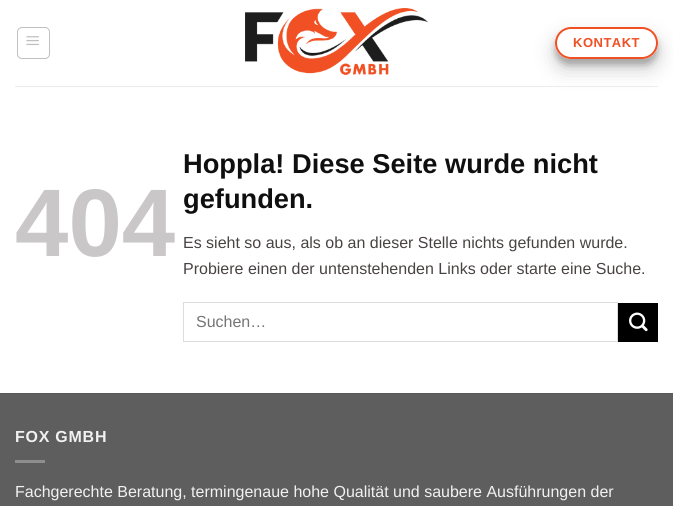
import math
import cairo



def draw_spaced(context, x, y, s, letter, word):
    context.move_to(x, y)
    for ch in s:
        context.show_text(ch)
        context.rel_move_to(letter + word * (ch == ' '), 0)


def rounded_rect(context, x, y, w, h, r):
    context.new_sub_path()
    for i, (u, v) in enumerate([(x + w - r, y + h - r), (x + r, y + h - r), (x + r, y + r), (x + w - r, y + r)]):
        context.arc(u, v, r, i * math.pi / 2, (i + 1) * math.pi / 2)
    context.close_path()


def draw_shadow(context, x, y, w, h, r, blur, alpha):
    context.push_group_with_content(cairo.Content.ALPHA)
    context.set_operator(cairo.Operator.SOURCE)
    for i in range(15, -16, -2):
        e = blur * i / 6
        if min(w, h) + 2 * e > 0:
            context.set_source_rgba(0, 0, 0, alpha * math.erfc((i - 1) / 8.5) / 2)
            rounded_rect(context, x - e, y - e, w + 2 * e, h + 2 * e, max(0, min(r + e + blur * .6, min(w, h) / 2 + e)))
            context.fill()
    context.mask(context.pop_group())


def draw_image(context, path, x, y, w, h):
    context.save()
    context.set_source_surface(cairo.ImageSurface.create_from_png(path), x, y)
    context.rectangle(x, y, w, h)
    context.fill()
    context.restore()


def draw(context):
    context.set_source_rgb(1, 1, 1)
    context.paint()
    rounded_rect(context, 17.5, 27.5, 32, 31, 4.5)
    context.set_source_rgb(192 / 255, 192 / 255, 192 / 255)
    context.set_line_width(1)
    context.stroke()
    draw_image(context, "images/1.png", 26, 36, 13, 10)
    draw_image(context, "images/2.png", 245, 8, 183, 67)
    context.save()
    context.set_fill_rule(cairo.FillRule.EVEN_ODD)
    context.new_path()
    context.move_to(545, 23)
    context.line_to(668, 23)
    context.line_to(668, 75)
    context.line_to(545, 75)
    context.close_path()
    context.move_to(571, 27)
    context.line_to(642, 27)
    context.curve_to(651, 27, 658, 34, 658, 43)
    context.curve_to(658, 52, 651, 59, 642, 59)
    context.line_to(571, 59)
    context.curve_to(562, 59, 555, 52, 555, 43)
    context.curve_to(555, 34, 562, 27, 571, 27)
    context.close_path()
    context.clip()
    context.set_source_rgb(0, 0, 0)
    draw_shadow(context, 555, 33, 103, 32, 16, 3, 0.22)
    context.restore()
    context.save()
    context.set_fill_rule(cairo.FillRule.EVEN_ODD)
    context.new_path()
    context.move_to(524, 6)
    context.line_to(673, 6)
    context.line_to(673, 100)
    context.line_to(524, 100)
    context.close_path()
    context.move_to(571, 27)
    context.line_to(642, 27)
    context.curve_to(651, 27, 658, 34, 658, 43)
    context.curve_to(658, 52, 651, 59, 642, 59)
    context.line_to(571, 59)
    context.curve_to(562, 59, 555, 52, 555, 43)
    context.curve_to(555, 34, 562, 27, 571, 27)
    context.close_path()
    context.clip()
    context.set_source_rgb(0, 0, 0)
    draw_shadow(context, 555, 37, 103, 32, 16, 10, 0.19)
    context.restore()
    rounded_rect(context, 556, 28, 101, 30, 15)
    context.set_source_rgb(240 / 255, 80 / 255, 35 / 255)
    context.set_line_width(2)
    context.stroke()
    context.set_source_rgb(237 / 255, 236 / 255, 236 / 255)
    context.rectangle(15, 86, 643, 1)
    context.fill()
    context.rectangle(183.5, 302.5, 434, 39)
    context.set_source_rgb(221 / 255, 221 / 255, 221 / 255)
    context.set_line_width(1)
    context.stroke()
    context.set_source_rgb(0, 0, 0)
    context.rectangle(618, 303, 40, 39)
    context.fill()
    draw_image(context, "images/3.png", 629, 312, 19, 20)
    context.set_source_rgb(94 / 255, 94 / 255, 94 / 255)
    context.rectangle(0, 394, 673, 112)
    context.fill()
    context.set_source_rgb(89 / 255, 89 / 255, 89 / 255)
    context.rectangle(0, 393, 673, 1)
    context.fill()
    context.set_source_rgb(142 / 255, 142 / 255, 142 / 255)
    context.rectangle(15, 460, 30, 3)
    context.fill()
    context.select_font_face("Liberation Sans", cairo.FontSlant.NORMAL, cairo.FontWeight.BOLD)
    context.set_font_size(13)
    context.set_source_rgb(240 / 255, 80 / 255, 35 / 255)
    draw_spaced(context, 573, 47, "KONTAKT", 0.5, 0)
    context.set_font_size(96)
    context.set_source_rgb(201 / 255, 199 / 255, 199 / 255)
    context.move_to(15, 256)
    context.show_text("404")
    context.set_font_size(27.25)
    context.set_source_rgb(15 / 255, 15 / 255, 15 / 255)
    context.move_to(183, 173)
    context.show_text("Hoppla! Diese Seite wurde nicht")
    context.move_to(183, 208)
    context.show_text("gefunden.")
    context.select_font_face("Liberation Sans")
    context.set_font_size(16)
    context.set_source_rgb(74 / 255, 67 / 255, 67 / 255)
    context.move_to(183, 248)
    context.show_text("Es sieht so aus, als ob an dieser Stelle nichts gefunden wurde.")
    context.move_to(183, 274)
    context.show_text("Probiere einen der untenstehenden Links oder starte eine Suche.")
    context.set_source_rgb(117 / 255, 117 / 255, 117 / 255)
    context.move_to(196, 327)
    context.show_text("Suchen…")
    context.select_font_face("Liberation Sans", cairo.FontSlant.NORMAL, cairo.FontWeight.BOLD)
    context.set_source_rgb(241 / 255, 241 / 255, 241 / 255)
    draw_spaced(context, 15, 442, "FOX GMBH", 0.75, 0)
    context.select_font_face("Liberation Sans")
    context.move_to(15, 497)
    context.show_text("Fachgerechte Beratung, termingenaue hohe Qualität und saubere Ausführungen der")


surface = cairo.ImageSurface(cairo.Format.RGB24, 673, 506)
context = cairo.Context(surface)
options = cairo.FontOptions()
options.set_hint_metrics(cairo.HintMetrics.OFF)
options.set_hint_style(cairo.HintStyle.NONE)
context.set_font_options(options)
context.set_miter_limit(4)
draw(context)
surface.write_to_png("out.png")
